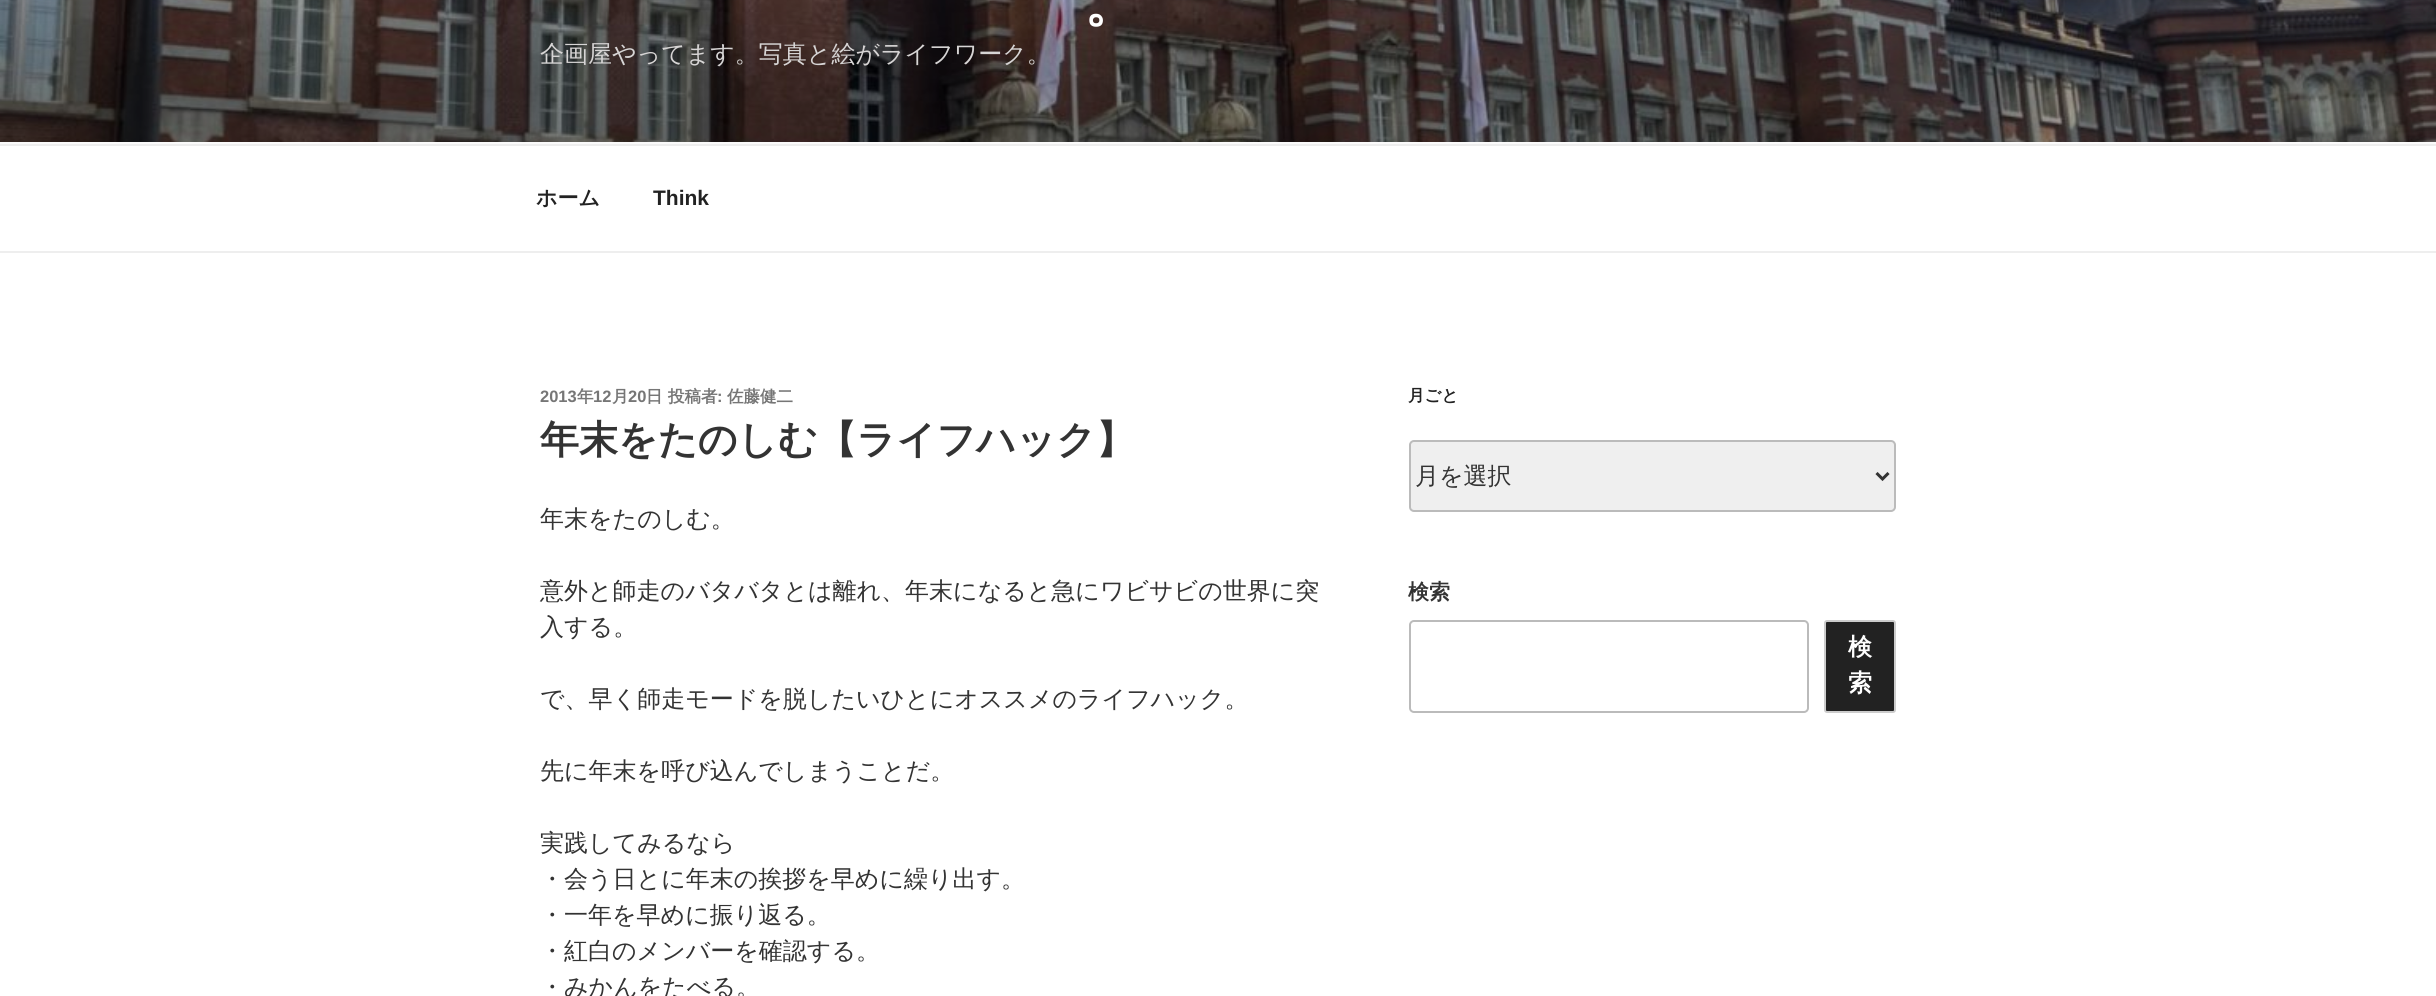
import math
import cairo



def rounded_rect(context, x, y, w, h, r):
    context.new_sub_path()
    for i, (u, v) in enumerate([(x + w - r, y + h - r), (x + r, y + h - r), (x + r, y + r), (x + w - r, y + r)]):
        context.arc(u, v, r, i * math.pi / 2, (i + 1) * math.pi / 2)
    context.close_path()


def draw_image(context, path, x, y, w, h):
    context.save()
    context.set_source_surface(cairo.ImageSurface.create_from_png(path), x, y)
    context.rectangle(x, y, w, h)
    context.fill()
    context.restore()


def draw(context):
    context.set_source_rgb(1, 1, 1)
    context.paint()
    context.set_source_rgb(250 / 255, 250 / 255, 250 / 255)
    context.rectangle(0, 142, 2436, 2)
    context.fill()
    draw_image(context, "images/1.png", 0, 0, 2436, 142)
    context.set_source_rgb(238 / 255, 238 / 255, 238 / 255)
    context.rectangle(0, 144, 2436, 2)
    context.fill()
    context.rectangle(0, 251, 2436, 2)
    context.fill()
    context.set_source_rgb(239 / 255, 239 / 255, 239 / 255)
    rounded_rect(context, 1410, 441, 485, 70, 4)
    context.fill_preserve()
    context.set_source_rgb(187 / 255, 187 / 255, 187 / 255)
    context.stroke()
    context.new_path()
    context.move_to(1876.5, 473)
    context.line_to(1882.5, 479)
    context.line_to(1888.5, 473)
    context.set_source_rgb(51 / 255, 51 / 255, 51 / 255)
    context.set_line_width(3)
    context.stroke()
    rounded_rect(context, 1410, 621, 398, 91, 4)
    context.set_source_rgb(187 / 255, 187 / 255, 187 / 255)
    context.set_line_width(2)
    context.stroke()
    context.set_source_rgb(34 / 255, 34 / 255, 34 / 255)
    rounded_rect(context, 1825, 621, 70, 91, 2)
    context.fill_preserve()
    context.set_source_rgb(204 / 255, 204 / 255, 204 / 255)
    context.stroke()
    context.select_font_face("WenQuanYi Zen Hei", cairo.FontSlant.NORMAL, cairo.FontWeight.BOLD)
    context.set_font_size(54)
    context.set_source_rgb(1, 1, 1)
    context.move_to(1084, 21)
    context.show_text("。")
    context.select_font_face("WenQuanYi Zen Hei Medium")
    context.set_font_size(24)
    context.set_source_rgb(215 / 255, 213 / 255, 213 / 255)
    context.move_to(540, 62)
    context.show_text("企画屋やってます。写真と絵がライフワーク。")
    context.select_font_face("WenQuanYi Zen Hei", cairo.FontSlant.NORMAL, cairo.FontWeight.BOLD)
    context.set_font_size(21)
    context.set_source_rgb(34 / 255, 34 / 255, 34 / 255)
    context.move_to(536, 205)
    context.show_text("ホーム")
    context.select_font_face("Liberation Sans", cairo.FontSlant.NORMAL, cairo.FontWeight.BOLD)
    context.move_to(653, 205)
    context.show_text("Think")
    context.set_font_size(16.5)
    context.set_source_rgb(118 / 255, 118 / 255, 118 / 255)
    context.move_to(540, 402)
    context.show_text("2013")
    context.select_font_face("WenQuanYi Zen Hei", cairo.FontSlant.NORMAL, cairo.FontWeight.BOLD)
    context.move_to(577, 402)
    context.show_text("年")
    context.select_font_face("Liberation Sans", cairo.FontSlant.NORMAL, cairo.FontWeight.BOLD)
    context.move_to(593, 402)
    context.show_text("12")
    context.select_font_face("WenQuanYi Zen Hei", cairo.FontSlant.NORMAL, cairo.FontWeight.BOLD)
    context.move_to(612, 402)
    context.show_text("月")
    context.select_font_face("Liberation Sans", cairo.FontSlant.NORMAL, cairo.FontWeight.BOLD)
    context.move_to(628, 402)
    context.show_text("20")
    context.select_font_face("WenQuanYi Zen Hei", cairo.FontSlant.NORMAL, cairo.FontWeight.BOLD)
    context.move_to(646, 402)
    context.show_text("日")
    context.move_to(668, 402)
    context.show_text("投稿者")
    context.select_font_face("Liberation Sans", cairo.FontSlant.NORMAL, cairo.FontWeight.BOLD)
    context.move_to(717, 402)
    context.show_text(":")
    context.select_font_face("WenQuanYi Zen Hei", cairo.FontSlant.NORMAL, cairo.FontWeight.BOLD)
    context.move_to(727, 402)
    context.show_text("佐藤健二")
    context.set_font_size(39)
    context.set_source_rgb(51 / 255, 51 / 255, 51 / 255)
    context.move_to(540, 453)
    context.show_text("年末をたのしむ【ライフハック】")
    context.select_font_face("WenQuanYi Zen Hei Medium")
    context.set_font_size(24)
    context.move_to(540, 527)
    context.show_text("年末をたのしむ。")
    context.move_to(540, 599)
    context.show_text("意外と師走のバタバタとは離れ、年末になると急にワビサビの世界に突")
    context.move_to(540, 635)
    context.show_text("入する。")
    context.move_to(540, 707)
    context.show_text("で、早く師走モードを脱したいひとにオススメのライフハック。")
    context.move_to(540, 779)
    context.show_text("先に年末を呼び込んでしまうことだ。")
    context.move_to(540, 851)
    context.show_text("実践してみるなら")
    context.move_to(540, 887)
    context.show_text("・会う日とに年末の挨拶を早めに繰り出す。")
    context.move_to(540, 923)
    context.show_text("・一年を早めに振り返る。")
    context.move_to(540, 959)
    context.show_text("・紅白のメンバーを確認する。")
    context.move_to(540, 995)
    context.show_text("・みかんをたべる。")
    context.select_font_face("WenQuanYi Zen Hei", cairo.FontSlant.NORMAL, cairo.FontWeight.BOLD)
    context.set_font_size(16.5)
    context.set_source_rgb(34 / 255, 34 / 255, 34 / 255)
    context.move_to(1408, 401)
    context.show_text("月ごと")
    context.select_font_face("WenQuanYi Zen Hei Medium")
    context.set_font_size(24)
    context.set_source_rgb(51 / 255, 51 / 255, 51 / 255)
    context.move_to(1415, 484)
    context.show_text("月を選択")
    context.select_font_face("WenQuanYi Zen Hei", cairo.FontSlant.NORMAL, cairo.FontWeight.BOLD)
    context.set_font_size(21)
    context.move_to(1408, 599)
    context.show_text("検索")
    context.set_font_size(24)
    context.set_source_rgb(1, 1, 1)
    context.move_to(1848, 655)
    context.show_text("検")
    context.move_to(1848, 691)
    context.show_text("索")


surface = cairo.ImageSurface(cairo.Format.RGB24, 2436, 996)
context = cairo.Context(surface)
options = cairo.FontOptions()
options.set_hint_metrics(cairo.HintMetrics.OFF)
options.set_hint_style(cairo.HintStyle.NONE)
context.set_font_options(options)
context.set_miter_limit(4)
draw(context)
surface.write_to_png("out.png")
